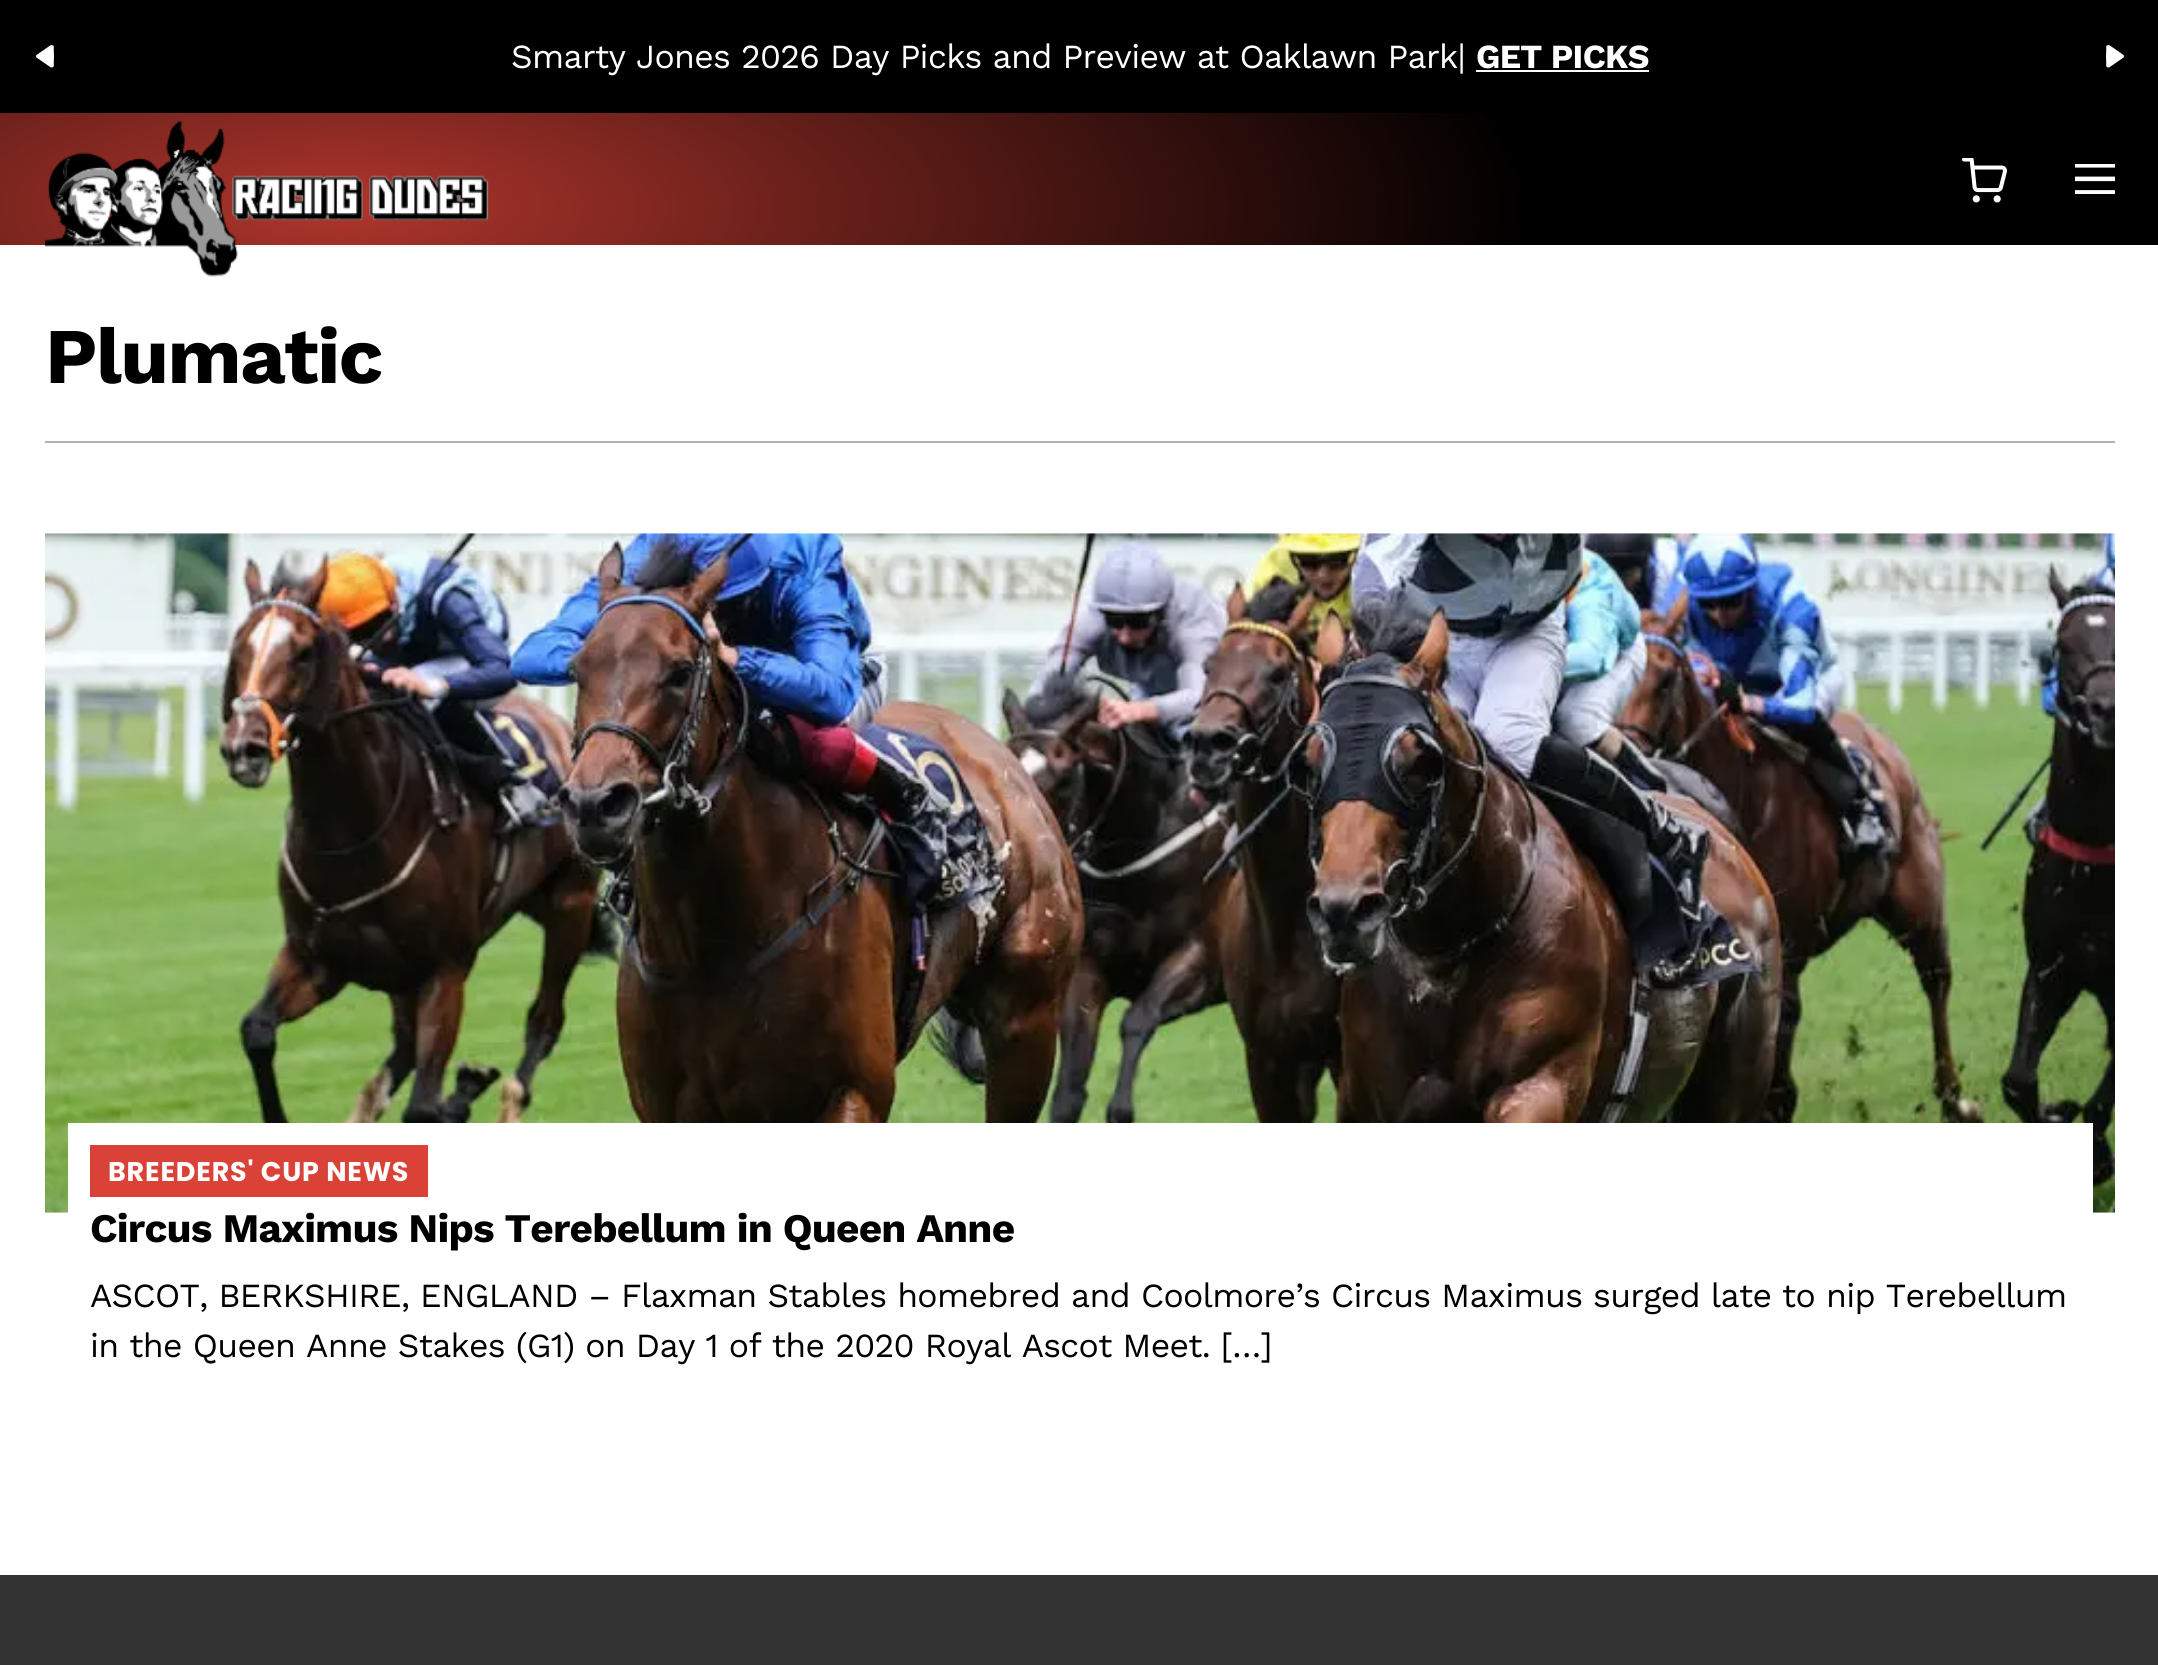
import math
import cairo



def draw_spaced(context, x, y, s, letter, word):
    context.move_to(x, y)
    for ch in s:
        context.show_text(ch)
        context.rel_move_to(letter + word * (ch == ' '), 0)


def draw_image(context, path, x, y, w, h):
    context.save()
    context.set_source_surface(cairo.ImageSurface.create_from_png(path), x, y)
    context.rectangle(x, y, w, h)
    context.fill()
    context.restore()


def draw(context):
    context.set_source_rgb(1, 1, 1)
    context.paint()
    context.set_source_rgb(0, 0, 0)
    context.rectangle(0, 0, 2158, 113)
    context.fill()
    draw_image(context, "images/1.png", 36, 45, 18, 23)
    context.set_source_rgb(1, 1, 1)
    context.rectangle(1476, 70, 173, 2)
    context.fill()
    draw_image(context, "images/2.png", 2106, 45, 18, 23)
    gradient = cairo.RadialGradient(0, 0, 0, 0, 0, 1)
    gradient.set_matrix(cairo.Matrix(1 / 1188, 0, 0, 1 / 398, -1 * 343 / 1188, -1 * 207 / 398))
    gradient.add_color_stop_rgba(0, 175 / 255, 53 / 255, 44 / 255, 1)
    gradient.add_color_stop_rgba(1, 0, 0, 0, 1)
    context.set_source(gradient)
    context.rectangle(0, 113, 2158, 132)
    context.fill()
    draw_image(context, "images/3.png", 45, 121, 444, 156)
    draw_image(context, "images/4.png", 1962, 158, 45, 45)
    draw_image(context, "images/5.png", 2075, 164, 40, 30)
    context.set_source_rgb(178 / 255, 178 / 255, 178 / 255)
    context.rectangle(45, 441, 2070, 2)
    context.fill()
    draw_image(context, "images/6.png", 45, 533, 2070, 680)
    context.set_source_rgb(1, 1, 1)
    context.rectangle(68, 1123, 2025, 90)
    context.fill()
    context.set_source_rgb(219 / 255, 66 / 255, 55 / 255)
    context.rectangle(90, 1145, 338, 52)
    context.fill()
    context.set_source_rgb(51 / 255, 51 / 255, 51 / 255)
    context.rectangle(0, 1575, 2158, 90)
    context.fill()
    context.select_font_face("Work Sans")
    context.set_font_size(33.75)
    context.set_source_rgb(1, 1, 1)
    draw_spaced(context, 511, 68, "Smarty Jones 2026 Day Picks and Preview at Oaklawn Park|", -0.67, 0)
    context.select_font_face("Work Sans", cairo.FontSlant.NORMAL, cairo.FontWeight.BOLD)
    draw_spaced(context, 1476, 68, "GET PICKS", -0.67, 0)
    context.set_font_size(78.75)
    context.set_source_rgb(0, 0, 0)
    draw_spaced(context, 45, 383, "Plumatic", -1.5, 0)
    context.select_font_face("Poppins", cairo.FontSlant.NORMAL, cairo.FontWeight.BOLD)
    context.set_font_size(27)
    context.set_source_rgb(1, 1, 1)
    draw_spaced(context, 108, 1181, "BREEDERS' CUP NEWS", 0.8, 0)
    context.select_font_face("Work Sans", cairo.FontSlant.NORMAL, cairo.FontWeight.BOLD)
    context.set_font_size(40.5)
    context.set_source_rgb(0, 0, 0)
    draw_spaced(context, 90, 1242, "Circus Maximus Nips Terebellum in Queen Anne", -0.8, 0)
    context.select_font_face("Work Sans")
    context.set_font_size(33.75)
    draw_spaced(context, 90, 1307, "ASCOT, BERKSHIRE, ENGLAND – Flaxman Stables homebred and Coolmore’s Circus Maximus surged late to nip Terebellum", -0.67, 0)
    draw_spaced(context, 90, 1357, "in the Queen Anne Stakes (G1) on Day 1 of the 2020 Royal Ascot Meet. […]", -0.67, 0)


surface = cairo.ImageSurface(cairo.Format.RGB24, 2158, 1665)
context = cairo.Context(surface)
options = cairo.FontOptions()
options.set_hint_metrics(cairo.HintMetrics.OFF)
options.set_hint_style(cairo.HintStyle.NONE)
context.set_font_options(options)
context.set_miter_limit(4)
draw(context)
surface.write_to_png("out.png")
